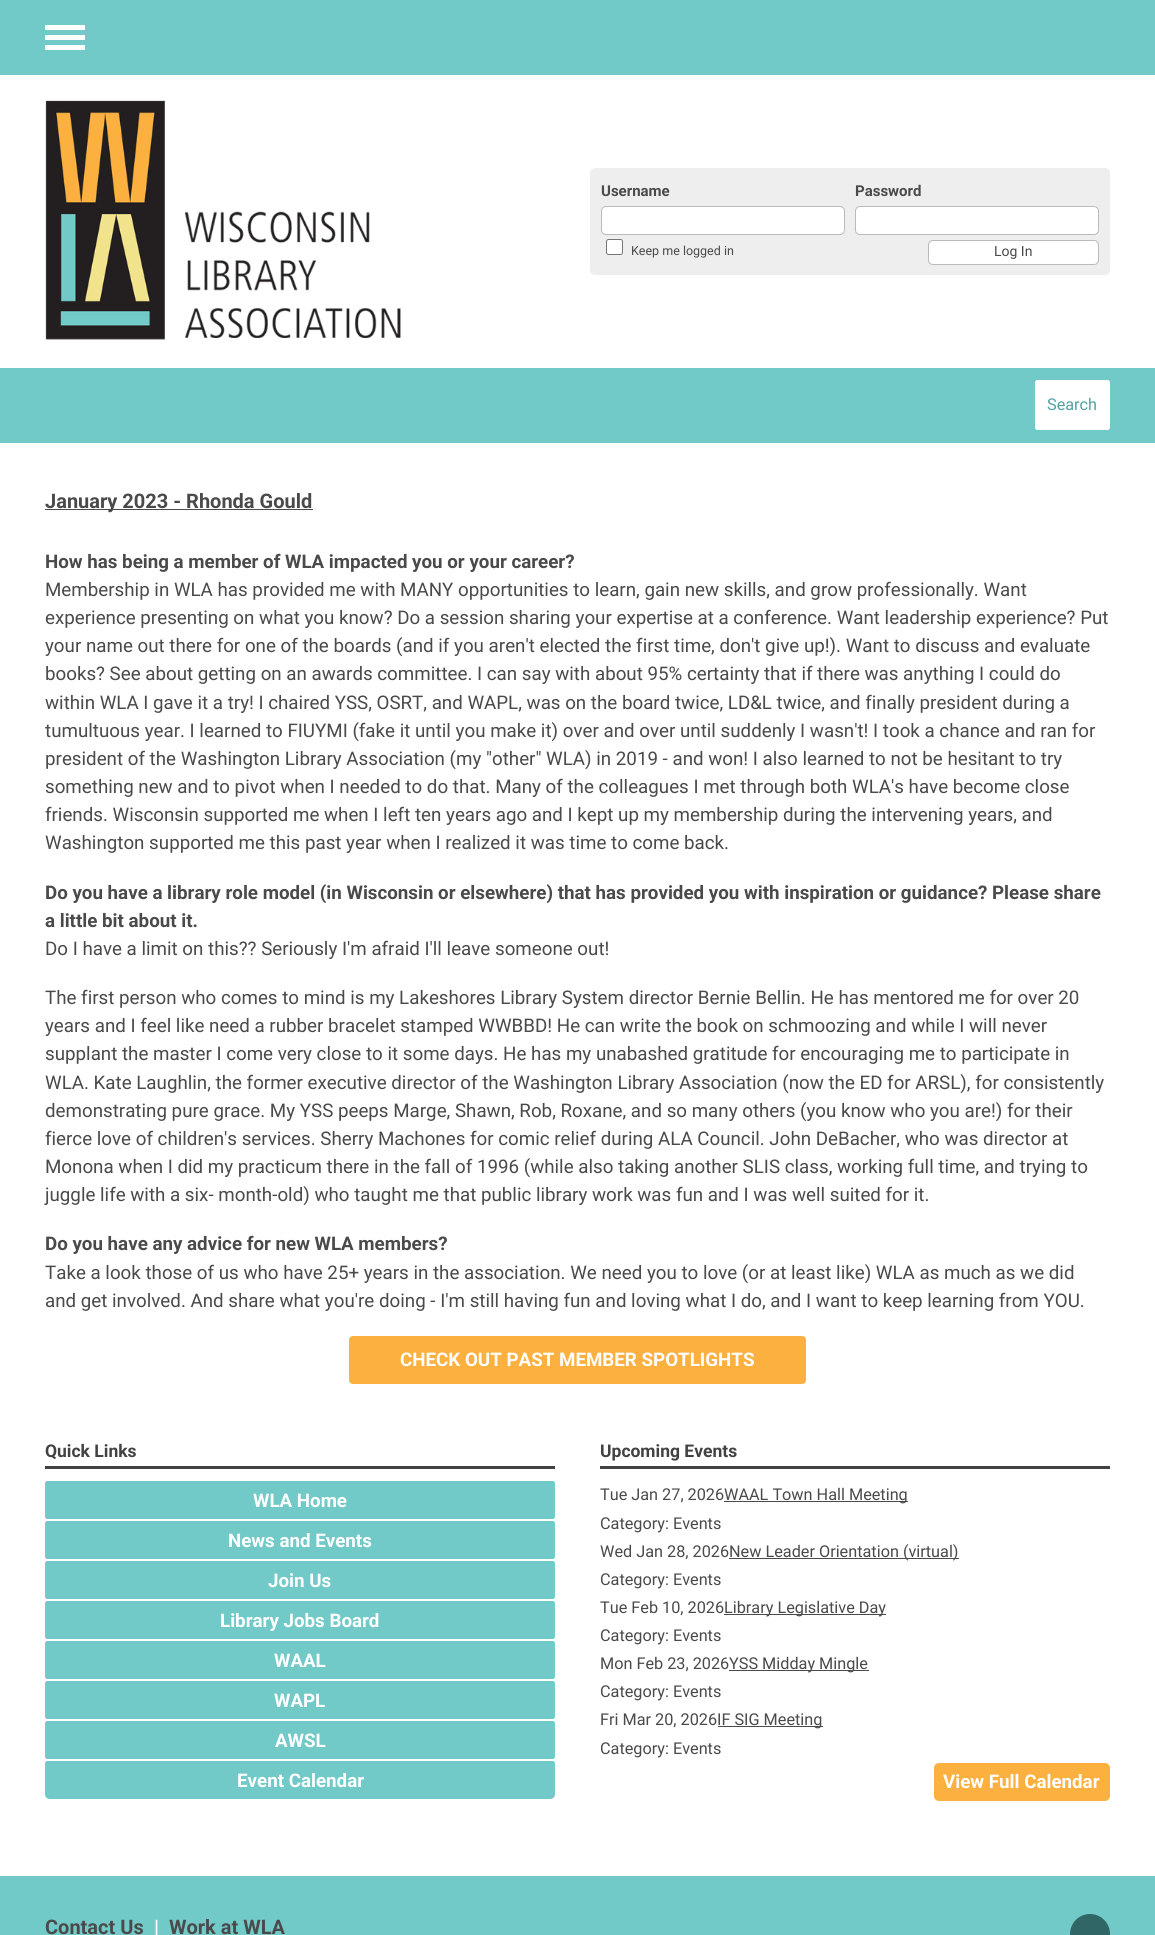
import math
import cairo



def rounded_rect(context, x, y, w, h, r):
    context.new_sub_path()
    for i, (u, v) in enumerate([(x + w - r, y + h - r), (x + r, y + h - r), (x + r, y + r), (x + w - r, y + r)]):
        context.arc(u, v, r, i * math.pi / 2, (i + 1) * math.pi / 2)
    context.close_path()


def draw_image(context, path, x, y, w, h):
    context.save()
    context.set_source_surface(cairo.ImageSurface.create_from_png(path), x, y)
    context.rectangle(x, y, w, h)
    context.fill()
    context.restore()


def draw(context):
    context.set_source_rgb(1, 1, 1)
    context.paint()
    context.set_source_rgb(114 / 255, 202 / 255, 200 / 255)
    context.rectangle(0, 0, 1155, 75)
    context.fill()
    context.set_source_rgb(1, 1, 1)
    context.new_path()
    context.move_to(45, 25)
    context.line_to(85, 25)
    context.line_to(85, 30)
    context.line_to(45, 30)
    context.close_path()
    context.move_to(45, 35)
    context.line_to(85, 35)
    context.line_to(85, 40)
    context.line_to(45, 40)
    context.close_path()
    context.move_to(45, 45)
    context.line_to(85, 45)
    context.line_to(85, 50)
    context.line_to(45, 50)
    context.close_path()
    context.fill()
    draw_image(context, "images/1.png", 45, 100, 356, 240)
    context.set_source_rgb(238 / 255, 238 / 255, 238 / 255)
    rounded_rect(context, 590, 168, 520, 107, 5)
    context.fill()
    context.set_source_rgb(1, 1, 1)
    rounded_rect(context, 601.5, 206.5, 243, 28, 4.5)
    context.fill_preserve()
    context.set_source_rgb(187 / 255, 187 / 255, 187 / 255)
    context.set_line_width(1)
    context.stroke()
    context.set_source_rgb(1, 1, 1)
    rounded_rect(context, 855.5, 206.5, 243, 28, 4.5)
    context.fill_preserve()
    context.set_source_rgb(187 / 255, 187 / 255, 187 / 255)
    context.stroke()
    context.set_source_rgb(1, 1, 1)
    rounded_rect(context, 606.5, 239.5, 16, 15, 2)
    context.fill_preserve()
    context.set_source_rgb(118 / 255, 118 / 255, 118 / 255)
    context.stroke()
    context.set_source_rgb(1, 1, 1)
    rounded_rect(context, 928.5, 240.5, 170, 24, 4.5)
    context.fill_preserve()
    context.set_source_rgb(187 / 255, 187 / 255, 187 / 255)
    context.stroke()
    context.set_source_rgb(114 / 255, 202 / 255, 200 / 255)
    context.rectangle(0, 368, 1155, 75)
    context.fill()
    context.set_source_rgb(1, 1, 1)
    rounded_rect(context, 1035, 380, 75, 50, 2.5)
    context.fill()
    context.set_source_rgb(74 / 255, 74 / 255, 74 / 255)
    context.rectangle(45, 509, 268, 1)
    context.fill()
    context.set_source_rgb(252 / 255, 176 / 255, 64 / 255)
    rounded_rect(context, 349, 1336, 457, 48, 4)
    context.fill()
    context.set_source_rgb(66 / 255, 66 / 255, 66 / 255)
    context.rectangle(45, 1466, 510, 3)
    context.fill()
    context.set_source_rgb(114 / 255, 202 / 255, 200 / 255)
    rounded_rect(context, 45, 1481, 510, 38, 2.5)
    context.fill()
    rounded_rect(context, 45, 1521, 510, 38, 2.5)
    context.fill()
    rounded_rect(context, 45, 1561, 510, 38, 2.5)
    context.fill()
    rounded_rect(context, 45, 1601, 510, 38, 2.5)
    context.fill()
    rounded_rect(context, 45, 1641, 510, 38, 2.5)
    context.fill()
    rounded_rect(context, 45, 1681, 510, 38, 2.5)
    context.fill()
    rounded_rect(context, 45, 1721, 510, 38, 2.5)
    context.fill()
    context.new_path()
    context.move_to(47.5, 1761)
    context.line_to(552.5, 1761)
    context.curve_to(554, 1761, 555, 1762, 555, 1763.5)
    context.line_to(555, 1794)
    context.curve_to(555, 1797, 553, 1799, 550, 1799)
    context.line_to(50, 1799)
    context.curve_to(47, 1799, 45, 1797, 45, 1794)
    context.line_to(45, 1763.5)
    context.curve_to(45, 1762, 46, 1761, 47.5, 1761)
    context.close_path()
    context.fill()
    context.set_source_rgb(66 / 255, 66 / 255, 66 / 255)
    context.rectangle(600, 1466, 510, 3)
    context.fill()
    context.set_source_rgb(74 / 255, 74 / 255, 74 / 255)
    context.rectangle(724, 1501, 184, 1)
    context.fill()
    context.rectangle(729, 1558, 230, 1)
    context.fill()
    context.rectangle(724, 1614, 162, 1)
    context.fill()
    context.rectangle(729, 1670, 140, 1)
    context.fill()
    context.rectangle(718, 1726, 105, 1)
    context.fill()
    context.set_source_rgb(252 / 255, 176 / 255, 64 / 255)
    rounded_rect(context, 934, 1763, 176, 38, 5)
    context.fill()
    context.set_source_rgb(114 / 255, 202 / 255, 200 / 255)
    context.rectangle(0, 1876, 1155, 59)
    context.fill()
    context.set_source_rgb(48 / 255, 103 / 255, 102 / 255)
    context.arc(1090, 1934, 20, 0, 2 * math.pi)
    context.fill()
    context.select_font_face("Roboto", cairo.FontSlant.NORMAL, cairo.FontWeight.BOLD)
    context.set_font_size(15)
    context.set_source_rgb(74 / 255, 74 / 255, 74 / 255)
    context.move_to(601, 196)
    context.show_text("Username")
    context.move_to(855, 196)
    context.show_text("Password")
    context.select_font_face("Roboto")
    context.set_font_size(12.5)
    context.move_to(631, 255)
    context.show_text("Keep me logged in")
    context.set_font_size(14)
    context.move_to(994, 256)
    context.show_text("Log In")
    context.set_font_size(16.25)
    context.set_source_rgb(82 / 255, 162 / 255, 161 / 255)
    context.move_to(1047, 410)
    context.show_text("Search")
    context.select_font_face("Roboto", cairo.FontSlant.NORMAL, cairo.FontWeight.BOLD)
    context.set_font_size(20)
    context.set_source_rgb(74 / 255, 74 / 255, 74 / 255)
    context.move_to(45, 508)
    context.show_text("January 2023 - Rhonda Gould")
    context.set_font_size(18.75)
    context.move_to(45, 568)
    context.show_text("How has being a member of WLA impacted you or your career?")
    context.select_font_face("Roboto")
    context.move_to(45, 596)
    context.show_text("Membership in WLA has provided me with MANY opportunities to learn, gain new skills, and grow professionally. Want")
    context.move_to(45, 624)
    context.show_text("experience presenting on what you know? Do a session sharing your expertise at a conference. Want leadership experience? Put")
    context.move_to(45, 652)
    context.show_text("your name out there for one of the boards (and if you aren't elected the first time, don't give up!). Want to discuss and evaluate")
    context.move_to(45, 680)
    context.show_text("books? See about getting on an awards committee. I can say with about 95% certainty that if there was anything I could do")
    context.move_to(45, 709)
    context.show_text("within WLA I gave it a try! I chaired YSS, OSRT, and WAPL, was on the board twice, LD&L twice, and finally president during a")
    context.move_to(45, 737)
    context.show_text("tumultuous year. I learned to FIUYMI (fake it until you make it) over and over until suddenly I wasn't! I took a chance and ran for")
    context.move_to(45, 765)
    context.show_text("president of the Washington Library Association (my \"other\" WLA) in 2019 - and won! I also learned to not be hesitant to try")
    context.move_to(45, 793)
    context.show_text("something new and to pivot when I needed to do that. Many of the colleagues I met through both WLA's have become close")
    context.move_to(45, 821)
    context.show_text("friends. Wisconsin supported me when I left ten years ago and I kept up my membership during the intervening years, and")
    context.move_to(45, 849)
    context.show_text("Washington supported me this past year when I realized it was time to come back.")
    context.select_font_face("Roboto", cairo.FontSlant.NORMAL, cairo.FontWeight.BOLD)
    context.move_to(45, 899)
    context.show_text("Do you have a library role model (in Wisconsin or elsewhere) that has provided you with inspiration or guidance? Please share")
    context.move_to(45, 927)
    context.show_text("a little bit about it.")
    context.select_font_face("Roboto")
    context.move_to(45, 955)
    context.show_text("Do I have a limit on this?? Seriously I'm afraid I'll leave someone out!")
    context.move_to(45, 1004)
    context.show_text("The first person who comes to mind is my Lakeshores Library System director Bernie Bellin. He has mentored me for over 20")
    context.move_to(45, 1032)
    context.show_text("years and I feel like need a rubber bracelet stamped WWBBD! He can write the book on schmoozing and while I will never")
    context.move_to(45, 1060)
    context.show_text("supplant the master I come very close to it some days. He has my unabashed gratitude for encouraging me to participate in")
    context.move_to(45, 1089)
    context.show_text("WLA. Kate Laughlin, the former executive director of the Washington Library Association (now the ED for ARSL), for consistently")
    context.move_to(45, 1117)
    context.show_text("demonstrating pure grace. My YSS peeps Marge, Shawn, Rob, Roxane, and so many others (you know who you are!) for their")
    context.move_to(45, 1145)
    context.show_text("fierce love of children's services. Sherry Machones for comic relief during ALA Council. John DeBacher, who was director at")
    context.move_to(45, 1173)
    context.show_text("Monona when I did my practicum there in the fall of 1996 (while also taking another SLIS class, working full time, and trying to")
    context.move_to(45, 1201)
    context.show_text("juggle life with a six- month-old) who taught me that public library work was fun and I was well suited for it.")
    context.select_font_face("Roboto", cairo.FontSlant.NORMAL, cairo.FontWeight.BOLD)
    context.move_to(45, 1250)
    context.show_text("Do you have any advice for new WLA members?")
    context.select_font_face("Roboto")
    context.move_to(45, 1279)
    context.show_text("Take a look those of us who have 25+ years in the association. We need you to love (or at least like) WLA as much as we did")
    context.move_to(45, 1307)
    context.show_text("and get involved. And share what you're doing - I'm still having fun and loving what I do, and I want to keep learning from YOU.")
    context.select_font_face("Roboto", cairo.FontSlant.NORMAL, cairo.FontWeight.BOLD)
    context.set_source_rgb(1, 1, 1)
    context.move_to(400, 1366)
    context.show_text("CHECK OUT PAST MEMBER SPOTLIGHTS")
    context.set_font_size(17.5)
    context.set_source_rgb(66 / 255, 66 / 255, 66 / 255)
    context.move_to(45, 1457)
    context.show_text("Quick Links")
    context.set_font_size(18.75)
    context.set_source_rgb(1, 1, 1)
    context.move_to(253, 1507)
    context.show_text("WLA Home")
    context.move_to(228, 1547)
    context.show_text("News and Events")
    context.move_to(268, 1587)
    context.show_text("Join Us")
    context.move_to(220, 1627)
    context.show_text("Library Jobs Board")
    context.move_to(274, 1667)
    context.show_text("WAAL")
    context.move_to(274, 1707)
    context.show_text("WAPL")
    context.move_to(275, 1747)
    context.show_text("AWSL")
    context.move_to(237, 1787)
    context.show_text("Event Calendar")
    context.set_font_size(17.5)
    context.set_source_rgb(66 / 255, 66 / 255, 66 / 255)
    context.move_to(600, 1457)
    context.show_text("Upcoming Events")
    context.select_font_face("Roboto")
    context.set_font_size(16.25)
    context.set_source_rgb(74 / 255, 74 / 255, 74 / 255)
    context.move_to(600, 1500)
    context.show_text("Tue Jan 27, 2026")
    context.move_to(724, 1500)
    context.show_text("WAAL Town Hall Meeting")
    context.move_to(600, 1529)
    context.show_text("Category: Events")
    context.move_to(600, 1557)
    context.show_text("Wed Jan 28, 2026")
    context.move_to(729, 1557)
    context.show_text("New Leader Orientation (virtual)")
    context.move_to(600, 1585)
    context.show_text("Category: Events")
    context.move_to(600, 1613)
    context.show_text("Tue Feb 10, 2026")
    context.move_to(724, 1613)
    context.show_text("Library Legislative Day")
    context.move_to(600, 1641)
    context.show_text("Category: Events")
    context.move_to(600, 1669)
    context.show_text("Mon Feb 23, 2026")
    context.move_to(729, 1669)
    context.show_text("YSS Midday Mingle")
    context.move_to(600, 1697)
    context.show_text("Category: Events")
    context.move_to(600, 1725)
    context.show_text("Fri Mar 20, 2026")
    context.move_to(717, 1725)
    context.show_text("IF SIG Meeting")
    context.move_to(600, 1754)
    context.show_text("Category: Events")
    context.select_font_face("Roboto", cairo.FontSlant.NORMAL, cairo.FontWeight.BOLD)
    context.set_font_size(18.75)
    context.set_source_rgb(1, 1, 1)
    context.move_to(943, 1788)
    context.show_text("View Full Calendar")
    context.set_font_size(20)
    context.set_source_rgb(74 / 255, 74 / 255, 74 / 255)
    context.move_to(45, 1934)
    context.show_text("Contact Us")
    context.set_source_rgb(1, 1, 1)
    context.move_to(154, 1934)
    context.show_text("|")
    context.set_source_rgb(74 / 255, 74 / 255, 74 / 255)
    context.move_to(169, 1934)
    context.show_text("Work at WLA")


surface = cairo.ImageSurface(cairo.Format.RGB24, 1155, 1935)
context = cairo.Context(surface)
options = cairo.FontOptions()
options.set_hint_metrics(cairo.HintMetrics.OFF)
options.set_hint_style(cairo.HintStyle.NONE)
context.set_font_options(options)
context.set_miter_limit(4)
draw(context)
surface.write_to_png("out.png")
